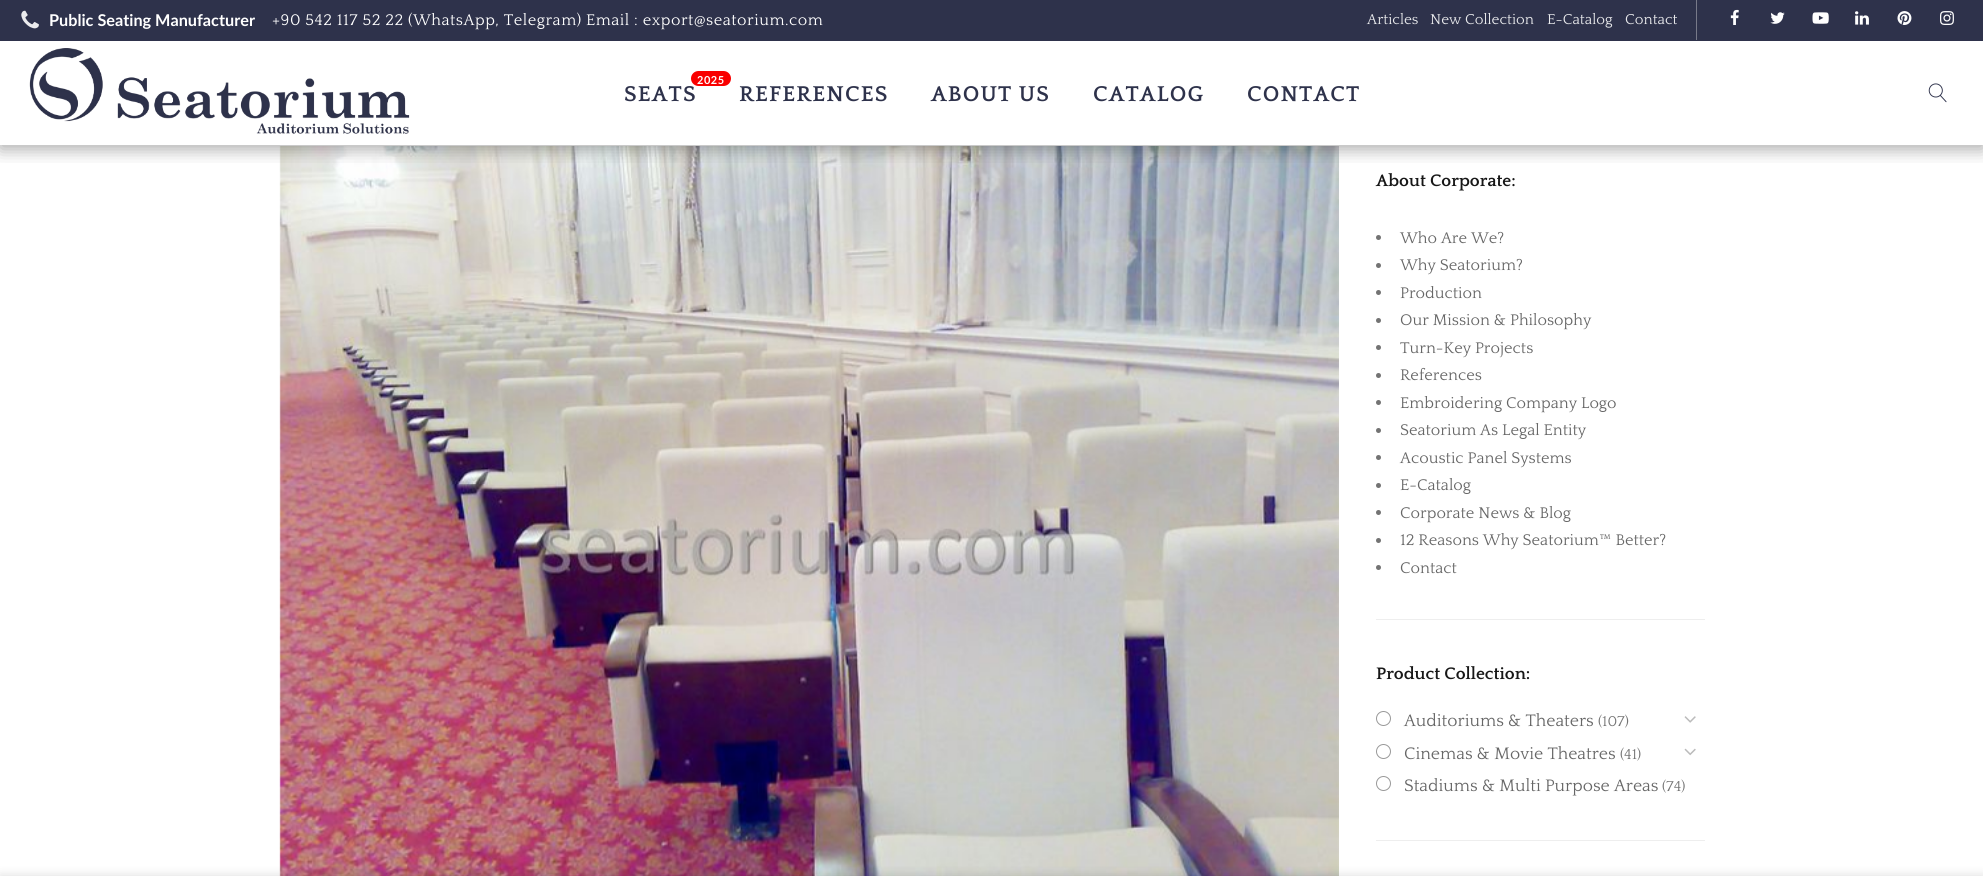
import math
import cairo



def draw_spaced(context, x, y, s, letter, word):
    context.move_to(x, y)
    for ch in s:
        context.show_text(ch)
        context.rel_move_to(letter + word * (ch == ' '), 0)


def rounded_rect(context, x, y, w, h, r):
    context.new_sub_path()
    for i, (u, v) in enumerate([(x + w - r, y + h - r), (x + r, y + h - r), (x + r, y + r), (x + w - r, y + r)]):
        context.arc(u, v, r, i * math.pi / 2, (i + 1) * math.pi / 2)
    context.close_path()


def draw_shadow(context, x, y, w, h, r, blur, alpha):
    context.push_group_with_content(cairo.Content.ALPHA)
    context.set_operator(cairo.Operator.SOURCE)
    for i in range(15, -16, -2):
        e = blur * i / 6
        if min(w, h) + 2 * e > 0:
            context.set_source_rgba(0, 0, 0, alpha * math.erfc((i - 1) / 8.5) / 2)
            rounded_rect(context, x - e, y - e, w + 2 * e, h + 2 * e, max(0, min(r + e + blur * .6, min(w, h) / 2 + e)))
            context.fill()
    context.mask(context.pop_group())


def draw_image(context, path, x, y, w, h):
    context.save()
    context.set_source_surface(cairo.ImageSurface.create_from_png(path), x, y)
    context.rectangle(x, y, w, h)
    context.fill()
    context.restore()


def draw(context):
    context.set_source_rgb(1, 1, 1)
    context.paint()
    draw_image(context, "images/10.png", 279, 146, 1060, 730)
    context.save()
    context.rectangle(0, 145, 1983, 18)
    context.clip()
    context.set_source_rgb(0, 0, 0)
    draw_shadow(context, 0, 44, 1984, 105, 0, 9, 0.34)
    context.restore()
    context.set_source_rgb(46 / 255, 50 / 255, 75 / 255)
    context.rectangle(0, 0, 1983, 41)
    context.fill()
    draw_image(context, "images/1.png", 21, 10, 18, 19)
    context.set_source_rgb(120 / 255, 122 / 255, 137 / 255)
    context.rectangle(1696, 0, 1, 40)
    context.fill()
    draw_image(context, "images/2.png", 1730, 9, 9, 16)
    draw_image(context, "images/3.png", 1770, 12, 15, 12)
    draw_image(context, "images/4.png", 1812, 12, 17, 12)
    draw_image(context, "images/5.png", 1855, 11, 14, 14)
    draw_image(context, "images/6.png", 1897, 11, 15, 14)
    draw_image(context, "images/7.png", 1940, 11, 14, 14)
    draw_image(context, "images/8.png", 29, 48, 381, 86)
    context.set_source_rgb(249 / 255, 0, 0)
    rounded_rect(context, 691, 71, 40, 15, 7.5)
    context.fill()
    draw_image(context, "images/9.png", 1928, 83, 19, 20)
    context.set_source_rgb(238 / 255, 238 / 255, 238 / 255)
    context.rectangle(1376, 619, 329, 1)
    context.fill()
    context.set_source_rgb(115 / 255, 115 / 255, 115 / 255)
    context.arc(1378.5, 237.5, 2.5, 0, 2 * math.pi)
    context.fill()
    context.arc(1378.5, 265.5, 2.5, 0, 2 * math.pi)
    context.fill()
    context.arc(1378.5, 292.5, 2.5, 0, 2 * math.pi)
    context.fill()
    context.arc(1378.5, 320.5, 2.5, 0, 2 * math.pi)
    context.fill()
    context.arc(1378.5, 347.5, 2.5, 0, 2 * math.pi)
    context.fill()
    context.arc(1378.5, 375.5, 2.5, 0, 2 * math.pi)
    context.fill()
    context.arc(1378.5, 402.5, 2.5, 0, 2 * math.pi)
    context.fill()
    context.arc(1378.5, 430.5, 2.5, 0, 2 * math.pi)
    context.fill()
    context.arc(1378.5, 457.5, 2.5, 0, 2 * math.pi)
    context.fill()
    context.arc(1378.5, 485.5, 2.5, 0, 2 * math.pi)
    context.fill()
    context.arc(1378.5, 512.5, 2.5, 0, 2 * math.pi)
    context.fill()
    context.arc(1378.5, 540.5, 2.5, 0, 2 * math.pi)
    context.fill()
    context.arc(1378.5, 567.5, 2.5, 0, 2 * math.pi)
    context.fill()
    context.set_source_rgb(238 / 255, 238 / 255, 238 / 255)
    context.rectangle(1376, 840, 329, 1)
    context.fill()
    context.arc(1383.5, 718.5, 7, 0, 2 * math.pi)
    context.set_source_rgb(153 / 255, 153 / 255, 153 / 255)
    context.set_line_width(1)
    context.stroke()
    draw_image(context, "images/11.png", 1684, 716, 12, 7)
    context.arc(1383.5, 751.5, 7, 0, 2 * math.pi)
    context.stroke()
    draw_image(context, "images/12.png", 1684, 748, 12, 8)
    context.arc(1383.5, 783.5, 7, 0, 2 * math.pi)
    context.stroke()
    context.set_source_rgb(0, 0, 0)
    draw_shadow(context, 0, 876, 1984, 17, 0, 5.5, 0.14)
    context.select_font_face("Lato", cairo.FontSlant.NORMAL, cairo.FontWeight.BOLD)
    context.set_font_size(16.25)
    context.set_source_rgb(1, 1, 1)
    context.move_to(49, 26)
    context.show_text("Public Seating Manufacturer")
    context.select_font_face("Quattrocento")
    draw_spaced(context, 272, 25, "+90 542 117 52 22 (WhatsApp, Telegram) Email : export@seatorium.com", 0.5, 0)
    context.set_font_size(15)
    context.set_source_rgb(234 / 255, 235 / 255, 237 / 255)
    context.move_to(1367, 24)
    context.show_text("Articles")
    context.move_to(1430, 24)
    context.show_text("New Collection")
    context.move_to(1547, 24)
    context.show_text("E-Catalog")
    context.move_to(1625, 24)
    context.show_text("Contact")
    context.select_font_face("Lato", cairo.FontSlant.NORMAL, cairo.FontWeight.BOLD)
    context.set_font_size(11)
    context.set_source_rgb(1, 1, 1)
    draw_spaced(context, 697, 84, "2025", 0.5, 0)
    context.select_font_face("Quattrocento", cairo.FontSlant.NORMAL, cairo.FontWeight.BOLD)
    context.set_font_size(22.5)
    context.set_source_rgb(46 / 255, 50 / 255, 75 / 255)
    draw_spaced(context, 624, 101, "SEATS", 1.1, 0)
    draw_spaced(context, 739, 101, "REFERENCES", 1.1, 0)
    draw_spaced(context, 931, 101, "ABOUT US", 1.1, 0)
    draw_spaced(context, 1093, 101, "CATALOG", 1.1, 0)
    draw_spaced(context, 1247, 101, "CONTACT", 1.1, 0)
    context.set_font_size(17.5)
    context.set_source_rgb(23 / 255, 23 / 255, 23 / 255)
    context.move_to(1376, 186)
    context.show_text("About Corporate:")
    context.select_font_face("Quattrocento")
    context.set_font_size(16.25)
    context.set_source_rgb(102 / 255, 102 / 255, 102 / 255)
    context.move_to(1400, 243)
    context.show_text("Who Are We?")
    context.move_to(1400, 270)
    context.show_text("Why Seatorium?")
    context.move_to(1400, 298)
    context.show_text("Production")
    context.move_to(1400, 325)
    context.show_text("Our Mission & Philosophy")
    context.move_to(1400, 353)
    context.show_text("Turn-Key Projects")
    context.move_to(1400, 380)
    context.show_text("References")
    context.move_to(1400, 408)
    context.show_text("Embroidering Company Logo")
    context.move_to(1400, 435)
    context.show_text("Seatorium As Legal Entity")
    context.move_to(1400, 463)
    context.show_text("Acoustic Panel Systems")
    context.move_to(1400, 490)
    context.show_text("E-Catalog")
    context.move_to(1400, 518)
    context.show_text("Corporate News & Blog")
    context.move_to(1400, 545)
    context.show_text("12 Reasons Why Seatorium™ Better?")
    context.move_to(1400, 573)
    context.show_text("Contact")
    context.select_font_face("Quattrocento", cairo.FontSlant.NORMAL, cairo.FontWeight.BOLD)
    context.set_font_size(17.5)
    context.set_source_rgb(23 / 255, 23 / 255, 23 / 255)
    context.move_to(1376, 679)
    context.show_text("Product Collection:")
    context.select_font_face("Quattrocento")
    context.set_source_rgb(102 / 255, 102 / 255, 102 / 255)
    context.move_to(1404, 726)
    context.show_text("Auditoriums & Theaters")
    context.set_font_size(15)
    context.set_source_rgb(115 / 255, 115 / 255, 115 / 255)
    context.move_to(1598, 726)
    context.show_text("(107)")
    context.set_font_size(17.5)
    context.set_source_rgb(102 / 255, 102 / 255, 102 / 255)
    context.move_to(1404, 759)
    context.show_text("Cinemas & Movie Theatres")
    context.set_font_size(15)
    context.set_source_rgb(115 / 255, 115 / 255, 115 / 255)
    context.move_to(1620, 759)
    context.show_text("(41)")
    context.set_font_size(17.5)
    context.set_source_rgb(102 / 255, 102 / 255, 102 / 255)
    context.move_to(1404, 791)
    context.show_text("Stadiums & Multi Purpose Areas")
    context.set_font_size(15)
    context.set_source_rgb(115 / 255, 115 / 255, 115 / 255)
    context.move_to(1662, 791)
    context.show_text("(74)")


surface = cairo.ImageSurface(cairo.Format.RGB24, 1983, 876)
context = cairo.Context(surface)
options = cairo.FontOptions()
options.set_hint_metrics(cairo.HintMetrics.OFF)
options.set_hint_style(cairo.HintStyle.NONE)
context.set_font_options(options)
context.set_miter_limit(4)
draw(context)
surface.write_to_png("out.png")
